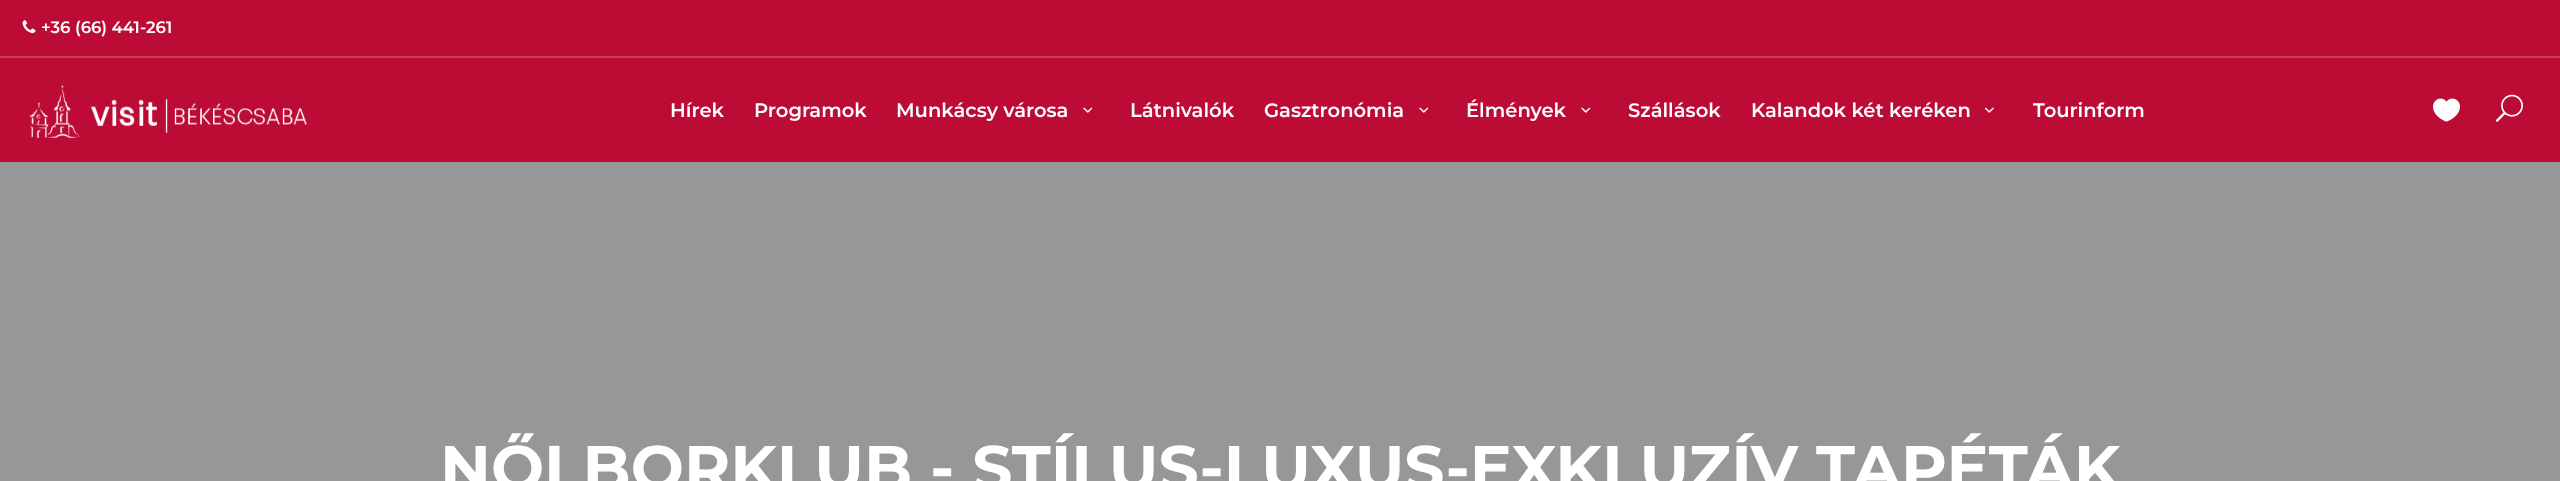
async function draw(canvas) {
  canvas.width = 2560
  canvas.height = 481
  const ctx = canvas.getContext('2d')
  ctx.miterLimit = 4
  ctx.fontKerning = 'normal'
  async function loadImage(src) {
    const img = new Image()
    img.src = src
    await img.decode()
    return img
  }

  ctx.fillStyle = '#979797'
  ctx.fillRect(0, 0, 2560, 481)
  ctx.fillStyle = '#bc0b34'
  ctx.fillRect(0, 0, 2560, 162)
  ctx.fillStyle = '#c93c5d'
  ctx.fillRect(0, 56, 2560, 2)
  ctx.drawImage(await loadImage('image0.png'), 22, 20, 14, 14)
  ctx.font = '100 16.5px "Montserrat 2"'
  ctx.fillStyle = '#fff'
  ctx.fillText('+36 (66) 441-261', 41, 33)
  ctx.drawImage(await loadImage('image1.png'), 29, 85, 278, 53)
  ctx.font = '100 19.5px "Montserrat 2"'
  ctx.fillText('Hírek', 670, 117)
  ctx.fillText('Programok', 754, 117)
  ctx.fillText('Munkácsy városa', 896, 117)
  ctx.drawImage(await loadImage('image2.png'), 1083, 107, 10, 6)
  ctx.fillText('Látnivalók', 1130, 117)
  ctx.fillText('Gasztronómia', 1264, 117)
  ctx.drawImage(await loadImage('image2.png'), 1419, 107, 10, 6)
  ctx.fillText('Élmények', 1466, 117)
  ctx.drawImage(await loadImage('image2.png'), 1581, 107, 10, 6)
  ctx.fillText('Szállások', 1628, 117)
  ctx.fillText('Kalandok két keréken', 1751, 117)
  ctx.drawImage(await loadImage('image3.png'), 1984, 107, 10, 6)
  ctx.fillText('Tourinform', 2033, 117)
  ctx.drawImage(await loadImage('image4.png'), 2433, 98, 27, 24)
  ctx.drawImage(await loadImage('image5.png'), 2495, 94, 28, 28)
  ctx.font = '100 63px Montserrat'
  ctx.fillText('NŐI BORKLUB - STÍLUS-LUXUS-EXKLUZÍV TAPÉTÁK', 440, 490)
}

draw(document.querySelector('canvas'))
